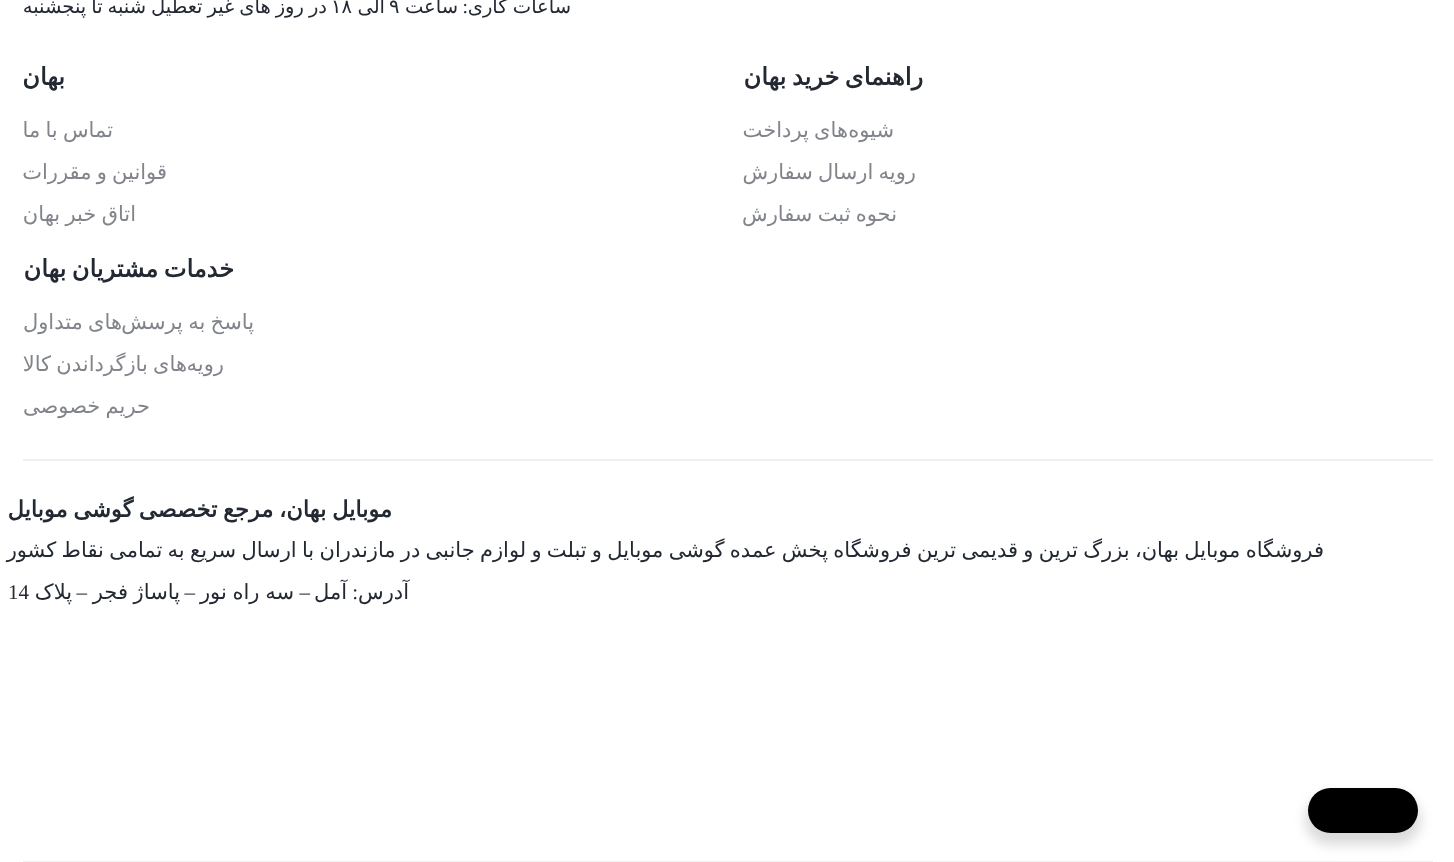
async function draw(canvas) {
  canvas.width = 1454
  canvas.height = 862
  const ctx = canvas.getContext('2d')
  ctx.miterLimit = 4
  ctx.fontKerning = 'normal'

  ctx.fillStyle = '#fff'
  ctx.fillRect(0, 0, 1454, 862)
  ctx.wordSpacing = '-1px'
  ctx.direction = 'rtl'
  ctx.font = '19.5px DejaVu Sans'
  ctx.fillStyle = '#232933'
  ctx.fillText('ساعات کاری', 571, 13)
  ctx.wordSpacing = '0px'
  ctx.font = '19.5px Liberation Serif'
  ctx.fillText(':', 468, 13)
  ctx.font = '19.5px DejaVu Sans'
  ctx.fillText('ساعت', 458, 13)
  ctx.direction = 'ltr'
  ctx.fillText('۹', 389, 13)
  ctx.direction = 'rtl'
  ctx.fillText('الی', 385, 13)
  ctx.wordSpacing = '-1.25px'
  ctx.fillText('در روز های غیر تعطیل شنبه تا پنجشنبه', 327, 13)
  ctx.wordSpacing = '0px'
  ctx.direction = 'ltr'
  ctx.fillText('۱۸', 331, 13)
  ctx.wordSpacing = '-2px'
  ctx.direction = 'rtl'
  ctx.font = 'bold 24px DejaVu Sans'
  ctx.fillText('راهنمای خرید بهان', 923, 85)
  ctx.wordSpacing = '0px'
  ctx.font = '21px DejaVu Sans'
  ctx.fillStyle = '#81858b'
  ctx.fillText('شیوه', 894, 137)
  ctx.wordSpacing = '-1.4px'
  ctx.fillText('های پرداخت', 848, 137)
  ctx.fillText('رویه ارسال سفارش', 916, 179)
  ctx.fillText('نحوه ثبت سفارش', 897, 221)
  ctx.wordSpacing = '0px'
  ctx.font = 'bold 24px DejaVu Sans'
  ctx.fillStyle = '#232933'
  ctx.fillText('بهان', 65, 85)
  ctx.wordSpacing = '-1.4px'
  ctx.font = '21px DejaVu Sans'
  ctx.fillStyle = '#81858b'
  ctx.fillText('تماس با ما', 113, 137)
  ctx.fillText('قوانین و مقررات', 167, 179)
  ctx.fillText('اتاق خبر بهان', 136, 221)
  ctx.wordSpacing = '-2px'
  ctx.font = 'bold 24px DejaVu Sans'
  ctx.fillStyle = '#232933'
  ctx.fillText('خدمات مشتریان بهان', 234, 277)
  ctx.wordSpacing = '-1.4px'
  ctx.font = '21px DejaVu Sans'
  ctx.fillStyle = '#81858b'
  ctx.fillText('پاسخ به پرسش', 254, 329)
  ctx.fillText('های متداول', 122, 329)
  ctx.fillText('های بازگرداندن کالا', 187, 371)
  ctx.wordSpacing = '0px'
  ctx.fillText('رویه', 224, 371)
  ctx.wordSpacing = '-1.4px'
  ctx.fillText('حریم خصوصی', 150, 413)
  ctx.fillStyle = '#f0f0f1'
  ctx.fillRect(23, 459, 1410, 2)
  ctx.fillRect(23, 861, 1410, 1)
  ctx.wordSpacing = '-1.5px'
  ctx.font = 'bold 22.5px DejaVu Sans'
  ctx.fillStyle = '#232933'
  ctx.fillText('موبایل بهان، مرجع تخصصی گوشی موبایل', 392, 517)
  ctx.wordSpacing = '-1.4px'
  ctx.font = '21px DejaVu Sans'
  ctx.fillText('فروشگاه موبایل بهان، بزرگ ترین و قدیمی ترین فروشگاه پخش عمده گوشی موبایل و تبلت و لوازم جانبی در مازندران با ارسال سریع به تمامی نقاط کشور', 1324, 557)
  ctx.wordSpacing = '0px'
  ctx.fillText('آدرس', 409, 599)
  ctx.font = '21px Liberation Serif'
  ctx.fillText(':', 358, 599)
  ctx.font = '21px DejaVu Sans'
  ctx.fillText('آمل', 347, 599)
  ctx.font = '21px Liberation Serif'
  ctx.fillText('–', 310, 599)
  ctx.wordSpacing = '-1px'
  ctx.font = '21px DejaVu Sans'
  ctx.fillText('سه راه نور', 294, 599)
  ctx.wordSpacing = '0px'
  ctx.font = '21px Liberation Serif'
  ctx.fillText('–', 195, 599)
  ctx.wordSpacing = '-1px'
  ctx.font = '21px DejaVu Sans'
  ctx.fillText('پاساژ فجر', 180, 599)
  ctx.wordSpacing = '0px'
  ctx.font = '21px Liberation Serif'
  ctx.fillText('–', 87, 599)
  ctx.font = '21px DejaVu Sans'
  ctx.fillText('پلاک', 72, 599)
  ctx.direction = 'ltr'
  ctx.font = '21px Liberation Serif'
  ctx.fillText('14', 8, 599)
  ctx.fillStyle = '#00000024'
  ctx.filter = 'blur(6px)'
  ctx.beginPath()
  ctx.roundRect(1305, 794, 116, 51, 25.5)
  ctx.fill()
  ctx.filter = 'none'
  ctx.fillStyle = '#000'
  ctx.beginPath()
  ctx.roundRect(1308, 788, 110, 45, 22.5)
  ctx.fill()
}

draw(document.querySelector('canvas'))
